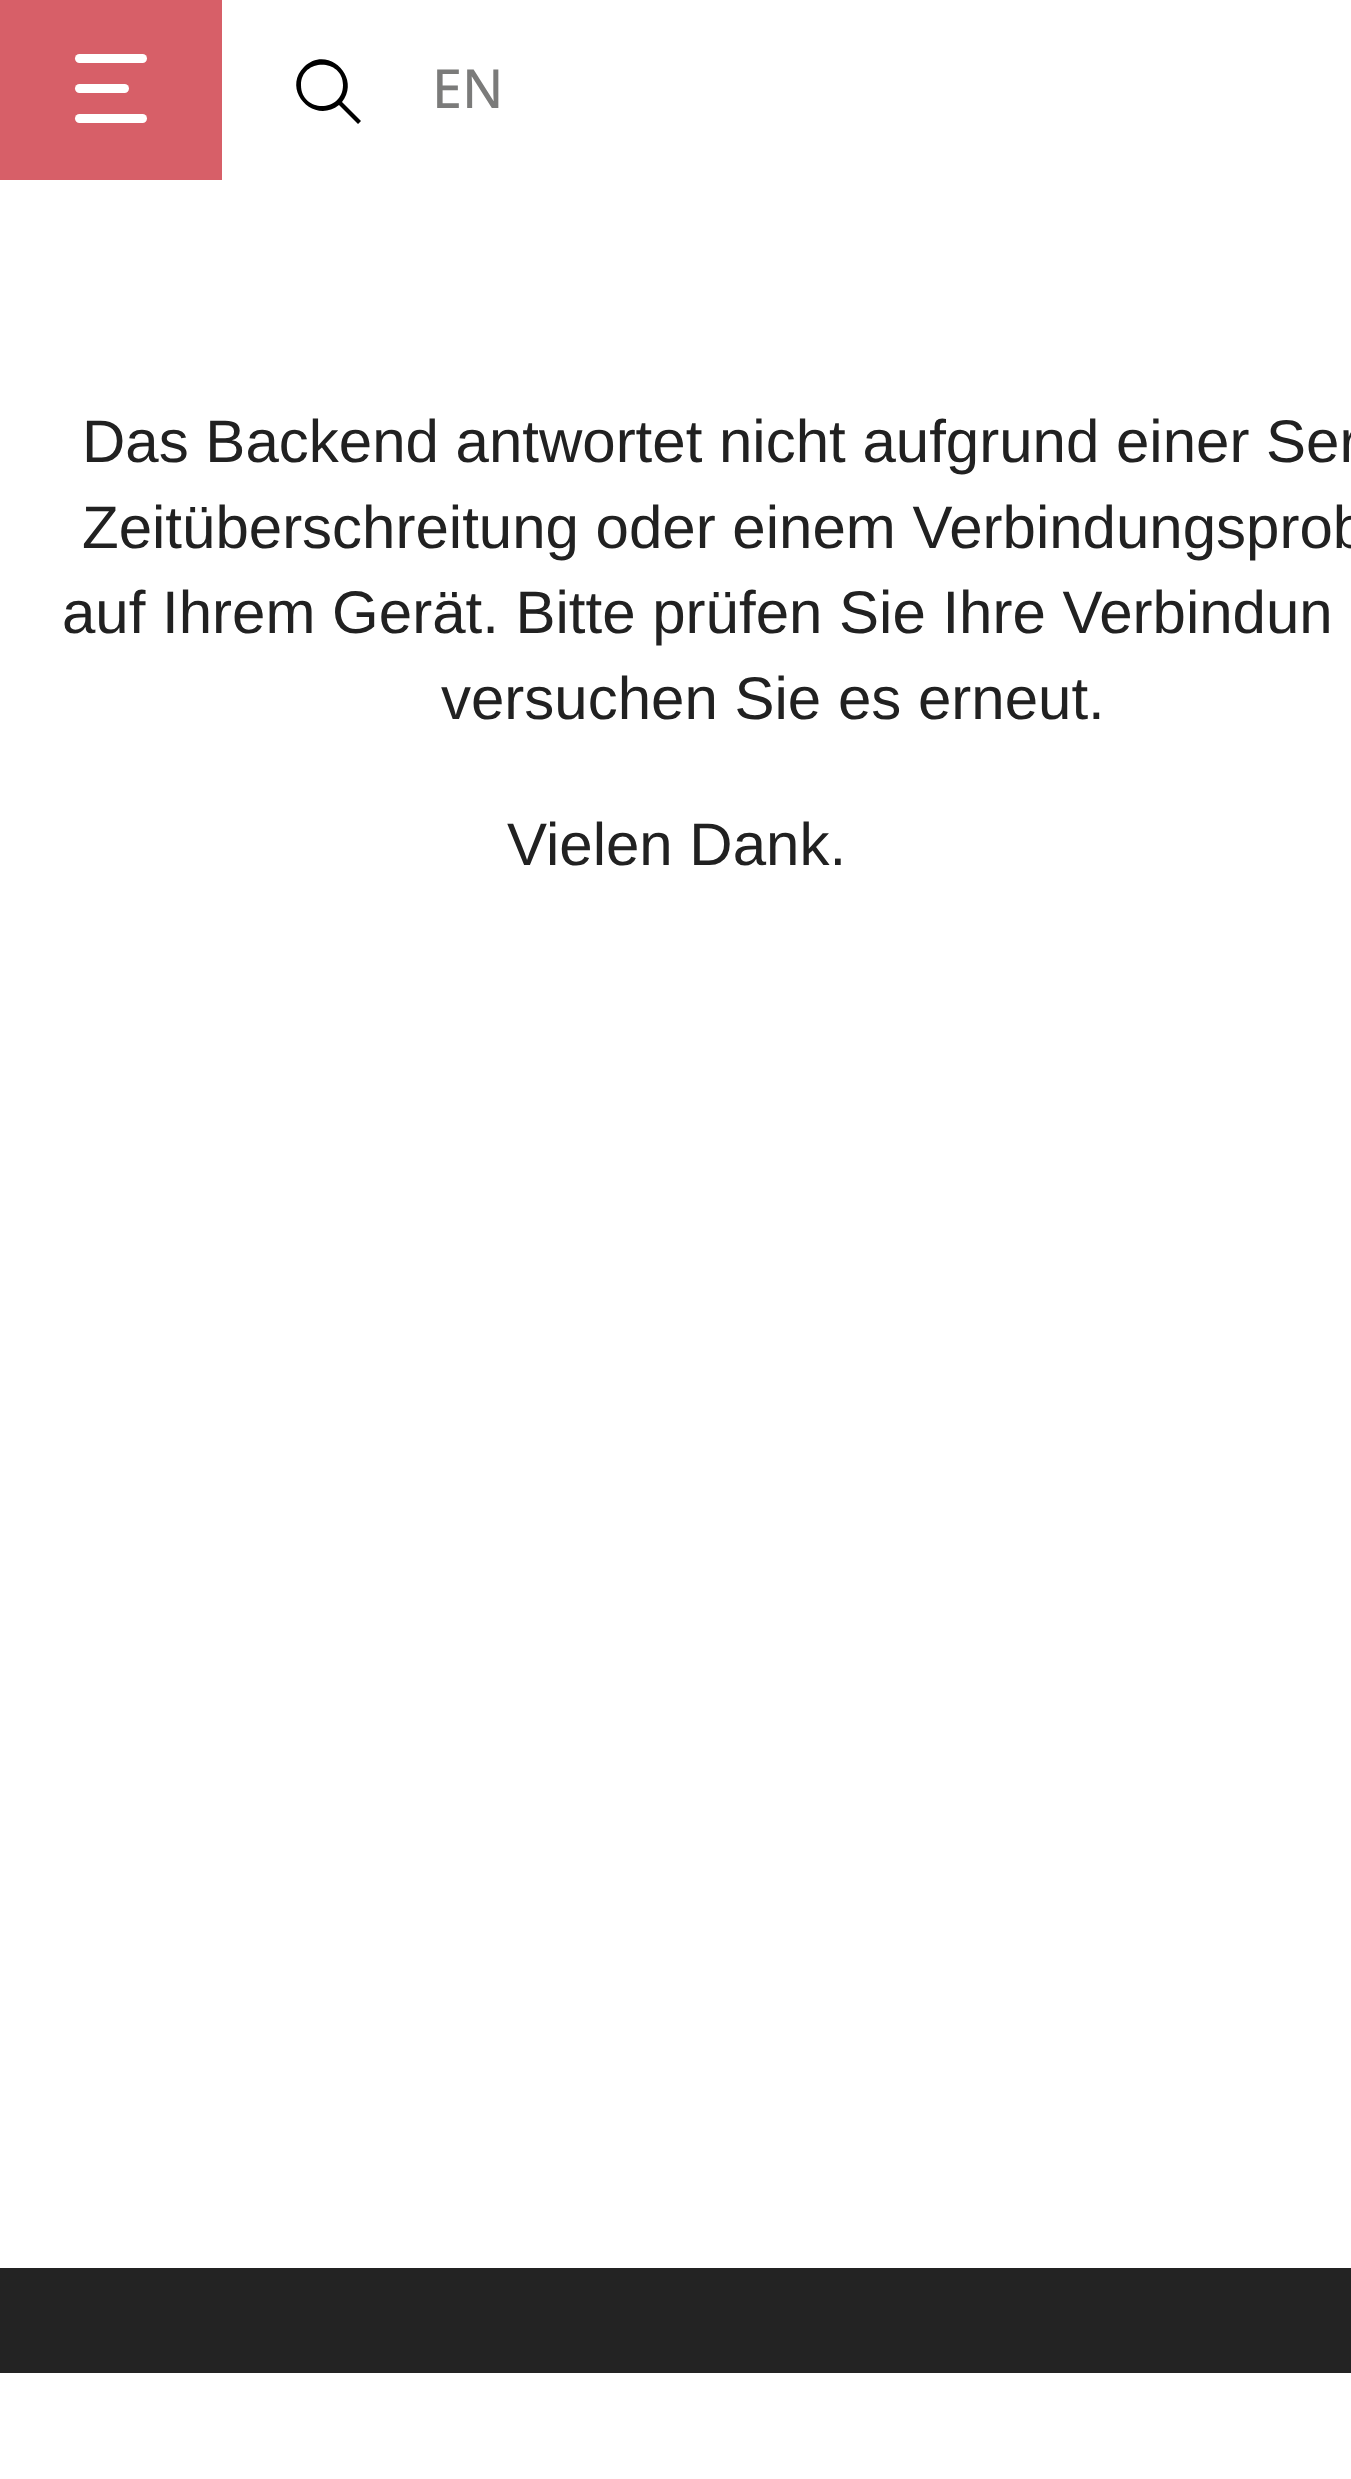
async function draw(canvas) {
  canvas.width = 1351
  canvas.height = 2479
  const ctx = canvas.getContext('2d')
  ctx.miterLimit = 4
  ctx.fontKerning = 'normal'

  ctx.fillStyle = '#fff'
  ctx.fillRect(0, 0, 1351, 2479)
  ctx.fillStyle = '#d75f68'
  ctx.fillRect(0, 0, 222, 180)
  ctx.fillStyle = '#fff'
  ctx.beginPath()
  ctx.roundRect(75, 84, 54, 9, 4.5)
  ctx.fill()
  ctx.beginPath()
  ctx.roundRect(75, 54, 72, 9, 4.5)
  ctx.fill()
  ctx.beginPath()
  ctx.roundRect(75, 114, 72, 9, 4.5)
  ctx.fill()
  ctx.fillStyle = '#000'
  ctx.beginPath()
  ctx.moveTo(301, 85)
  ctx.bezierCurveTo(301, 58, 343, 58, 343, 85)
  ctx.bezierCurveTo(343, 113, 301, 113, 301, 85)
  ctx.closePath()
  ctx.moveTo(361, 121)
  ctx.lineTo(342, 102)
  ctx.bezierCurveTo(362, 77, 327, 44, 304, 67)
  ctx.bezierCurveTo(281, 90, 314, 125, 339, 105)
  ctx.lineTo(358, 124)
  ctx.closePath()
  ctx.fill('evenodd')
  ctx.font = '500 54px Open Sans'
  ctx.fillStyle = '#7b7b7a'
  ctx.fillText('EN', 432, 108)
  ctx.font = '60px Liberation Sans'
  ctx.fillStyle = '#212121'
  ctx.fillText('Das Backend antwortet nicht aufgrund einer Ser', 82, 462)
  ctx.fillText('Zeitüberschreitung oder einem Verbindungsprob', 82, 548)
  ctx.fillText('auf Ihrem Gerät. Bitte prüfen Sie Ihre Verbindun', 62, 633)
  ctx.fillText('versuchen Sie es erneut.', 441, 719)
  ctx.fillText('Vielen Dank.', 507, 865)
  ctx.fillStyle = '#232323'
  ctx.fillRect(0, 2268, 1351, 105)
}

draw(document.querySelector('canvas'))
